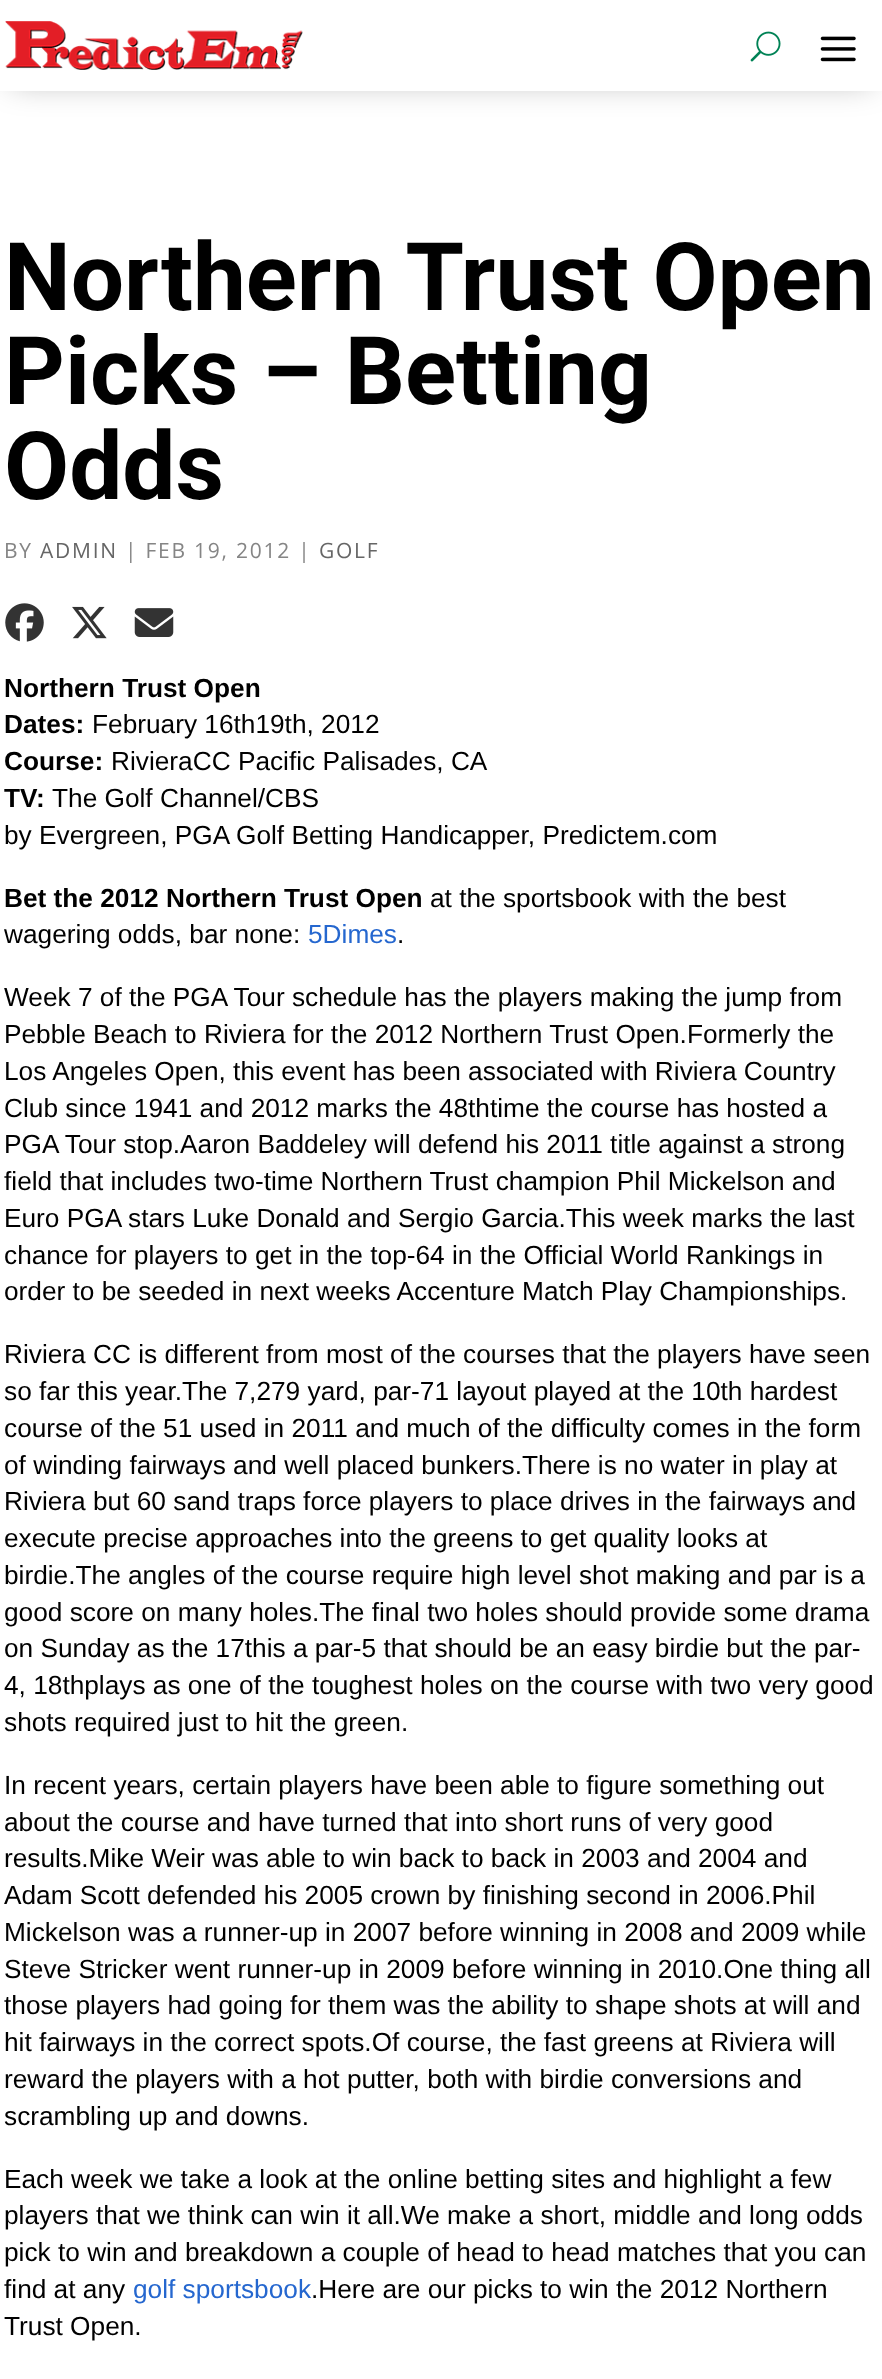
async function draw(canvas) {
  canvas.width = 882
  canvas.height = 2379
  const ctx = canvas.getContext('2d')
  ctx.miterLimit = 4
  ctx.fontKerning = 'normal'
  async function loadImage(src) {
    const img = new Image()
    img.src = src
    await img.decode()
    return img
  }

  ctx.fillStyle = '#fff'
  ctx.fillRect(0, 0, 882, 2379)
  ctx.fillStyle = '#0000004d'
  ctx.filter = 'blur(16px)'
  ctx.beginPath()
  ctx.rect(11, 12, 861, 70)
  ctx.fill()
  ctx.filter = 'none'
  ctx.fillStyle = '#fff'
  ctx.fillRect(0, 0, 882, 91)
  ctx.drawImage(await loadImage('image0.png'), 5, 21, 298, 49)
  ctx.drawImage(await loadImage('image1.png'), 750, 31, 31, 31)
  ctx.drawImage(await loadImage('image2.png'), 820, 36, 36, 26)
  ctx.font = 'bold 94.5px Roboto'
  ctx.fillStyle = '#000'
  ctx.fillText('Northern Trust Open', 4, 310)
  ctx.fillText('Picks – Betting', 4, 404)
  ctx.fillText('Odds', 4, 499)
  ctx.letterSpacing = '1.75px'
  ctx.font = '21px Open Sans'
  ctx.fillStyle = '#858585'
  ctx.fillText('BY', 4, 558)
  ctx.fillStyle = '#666'
  ctx.fillText('ADMIN', 40, 558)
  ctx.fillStyle = '#858585'
  ctx.fillText('| FEB 19, 2012 |', 125, 558)
  ctx.fillStyle = '#666'
  ctx.fillText('GOLF', 319, 558)
  ctx.drawImage(await loadImage('image3.png'), 5, 603, 39, 39)
  ctx.drawImage(await loadImage('image4.png'), 72, 606, 35, 33)
  ctx.drawImage(await loadImage('image5.png'), 134, 608, 40, 29)
  ctx.letterSpacing = '0px'
  ctx.font = 'bold 26.25px Liberation Sans'
  ctx.fillStyle = '#000'
  ctx.fillText('Northern Trust Open', 4, 697)
  ctx.fillText('Dates:', 4, 733)
  ctx.font = '26.25px Liberation Sans'
  ctx.fillText('February 16th19th, 2012', 92, 733)
  ctx.font = 'bold 26.25px Liberation Sans'
  ctx.fillText('Course:', 4, 770)
  ctx.font = '26.25px Liberation Sans'
  ctx.fillText('RivieraCC Pacific Palisades, CA', 111, 770)
  ctx.font = 'bold 26.25px Liberation Sans'
  ctx.fillText('TV:', 4, 807)
  ctx.font = '26.25px Liberation Sans'
  ctx.fillText('The Golf Channel/CBS', 52, 807)
  ctx.fillText('by Evergreen, PGA Golf Betting Handicapper, Predictem.com', 4, 844)
  ctx.font = 'bold 26.25px Liberation Sans'
  ctx.fillText('Bet the 2012 Northern Trust Open', 4, 907)
  ctx.font = '26.25px Liberation Sans'
  ctx.fillText('at the sportsbook with the best', 430, 907)
  ctx.fillText('wagering odds, bar none:', 4, 943)
  ctx.fillStyle = '#2567cf'
  ctx.fillText('5Dimes', 308, 943)
  ctx.fillStyle = '#000'
  ctx.fillText('.', 397, 943)
  ctx.fillText('Week 7 of the PGA Tour schedule has the players making the jump from', 4, 1006)
  ctx.fillText('Pebble Beach to Riviera for the 2012 Northern Trust Open.Formerly the', 4, 1043)
  ctx.fillText('Los Angeles Open, this event has been associated with Riviera Country', 4, 1080)
  ctx.fillText('Club since 1941 and 2012 marks the 48thtime the course has hosted a', 4, 1117)
  ctx.fillText('PGA Tour stop.Aaron Baddeley will defend his 2011 title against a strong', 4, 1153)
  ctx.fillText('field that includes two-time Northern Trust champion Phil Mickelson and', 4, 1190)
  ctx.fillText('Euro PGA stars Luke Donald and Sergio Garcia.This week marks the last', 4, 1227)
  ctx.fillText('chance for players to get in the top-64 in the Official World Rankings in', 4, 1264)
  ctx.fillText('order to be seeded in next weeks Accenture Match Play Championships.', 4, 1300)
  ctx.fillText('Riviera CC is different from most of the courses that the players have seen', 4, 1363)
  ctx.fillText('so far this year.The 7,279 yard, par-71 layout played at the 10th hardest', 4, 1400)
  ctx.fillText('course of the 51 used in 2011 and much of the difficulty comes in the form', 4, 1437)
  ctx.fillText('of winding fairways and well placed bunkers.There is no water in play at', 4, 1474)
  ctx.fillText('Riviera but 60 sand traps force players to place drives in the fairways and', 4, 1510)
  ctx.fillText('execute precise approaches into the greens to get quality looks at', 4, 1547)
  ctx.fillText('birdie.The angles of the course require high level shot making and par is a', 4, 1584)
  ctx.fillText('good score on many holes.The final two holes should provide some drama', 4, 1621)
  ctx.fillText('on Sunday as the 17this a par-5 that should be an easy birdie but the par-', 4, 1657)
  ctx.fillText('4, 18thplays as one of the toughest holes on the course with two very good', 4, 1694)
  ctx.fillText('shots required just to hit the green.', 4, 1731)
  ctx.fillText('In recent years, certain players have been able to figure something out', 4, 1794)
  ctx.fillText('about the course and have turned that into short runs of very good', 4, 1831)
  ctx.fillText('results.Mike Weir was able to win back to back in 2003 and 2004 and', 4, 1867)
  ctx.fillText('Adam Scott defended his 2005 crown by finishing second in 2006.Phil', 4, 1904)
  ctx.fillText('Mickelson was a runner-up in 2007 before winning in 2008 and 2009 while', 4, 1941)
  ctx.fillText('Steve Stricker went runner-up in 2009 before winning in 2010.One thing all', 4, 1978)
  ctx.fillText('those players had going for them was the ability to shape shots at will and', 4, 2014)
  ctx.fillText('hit fairways in the correct spots.Of course, the fast greens at Riviera will', 4, 2051)
  ctx.fillText('reward the players with a hot putter, both with birdie conversions and', 4, 2088)
  ctx.fillText('scrambling up and downs.', 4, 2125)
  ctx.fillText('Each week we take a look at the online betting sites and highlight a few', 4, 2188)
  ctx.fillText('players that we think can win it all.We make a short, middle and long odds', 4, 2224)
  ctx.fillText('pick to win and breakdown a couple of head to head matches that you can', 4, 2261)
  ctx.fillText('find at any', 4, 2298)
  ctx.fillStyle = '#2567cf'
  ctx.fillText('golf sportsbook', 133, 2298)
  ctx.fillStyle = '#000'
  ctx.fillText('.Here are our picks to win the 2012 Northern', 311, 2298)
  ctx.fillText('Trust Open.', 4, 2335)
}

draw(document.querySelector('canvas'))
